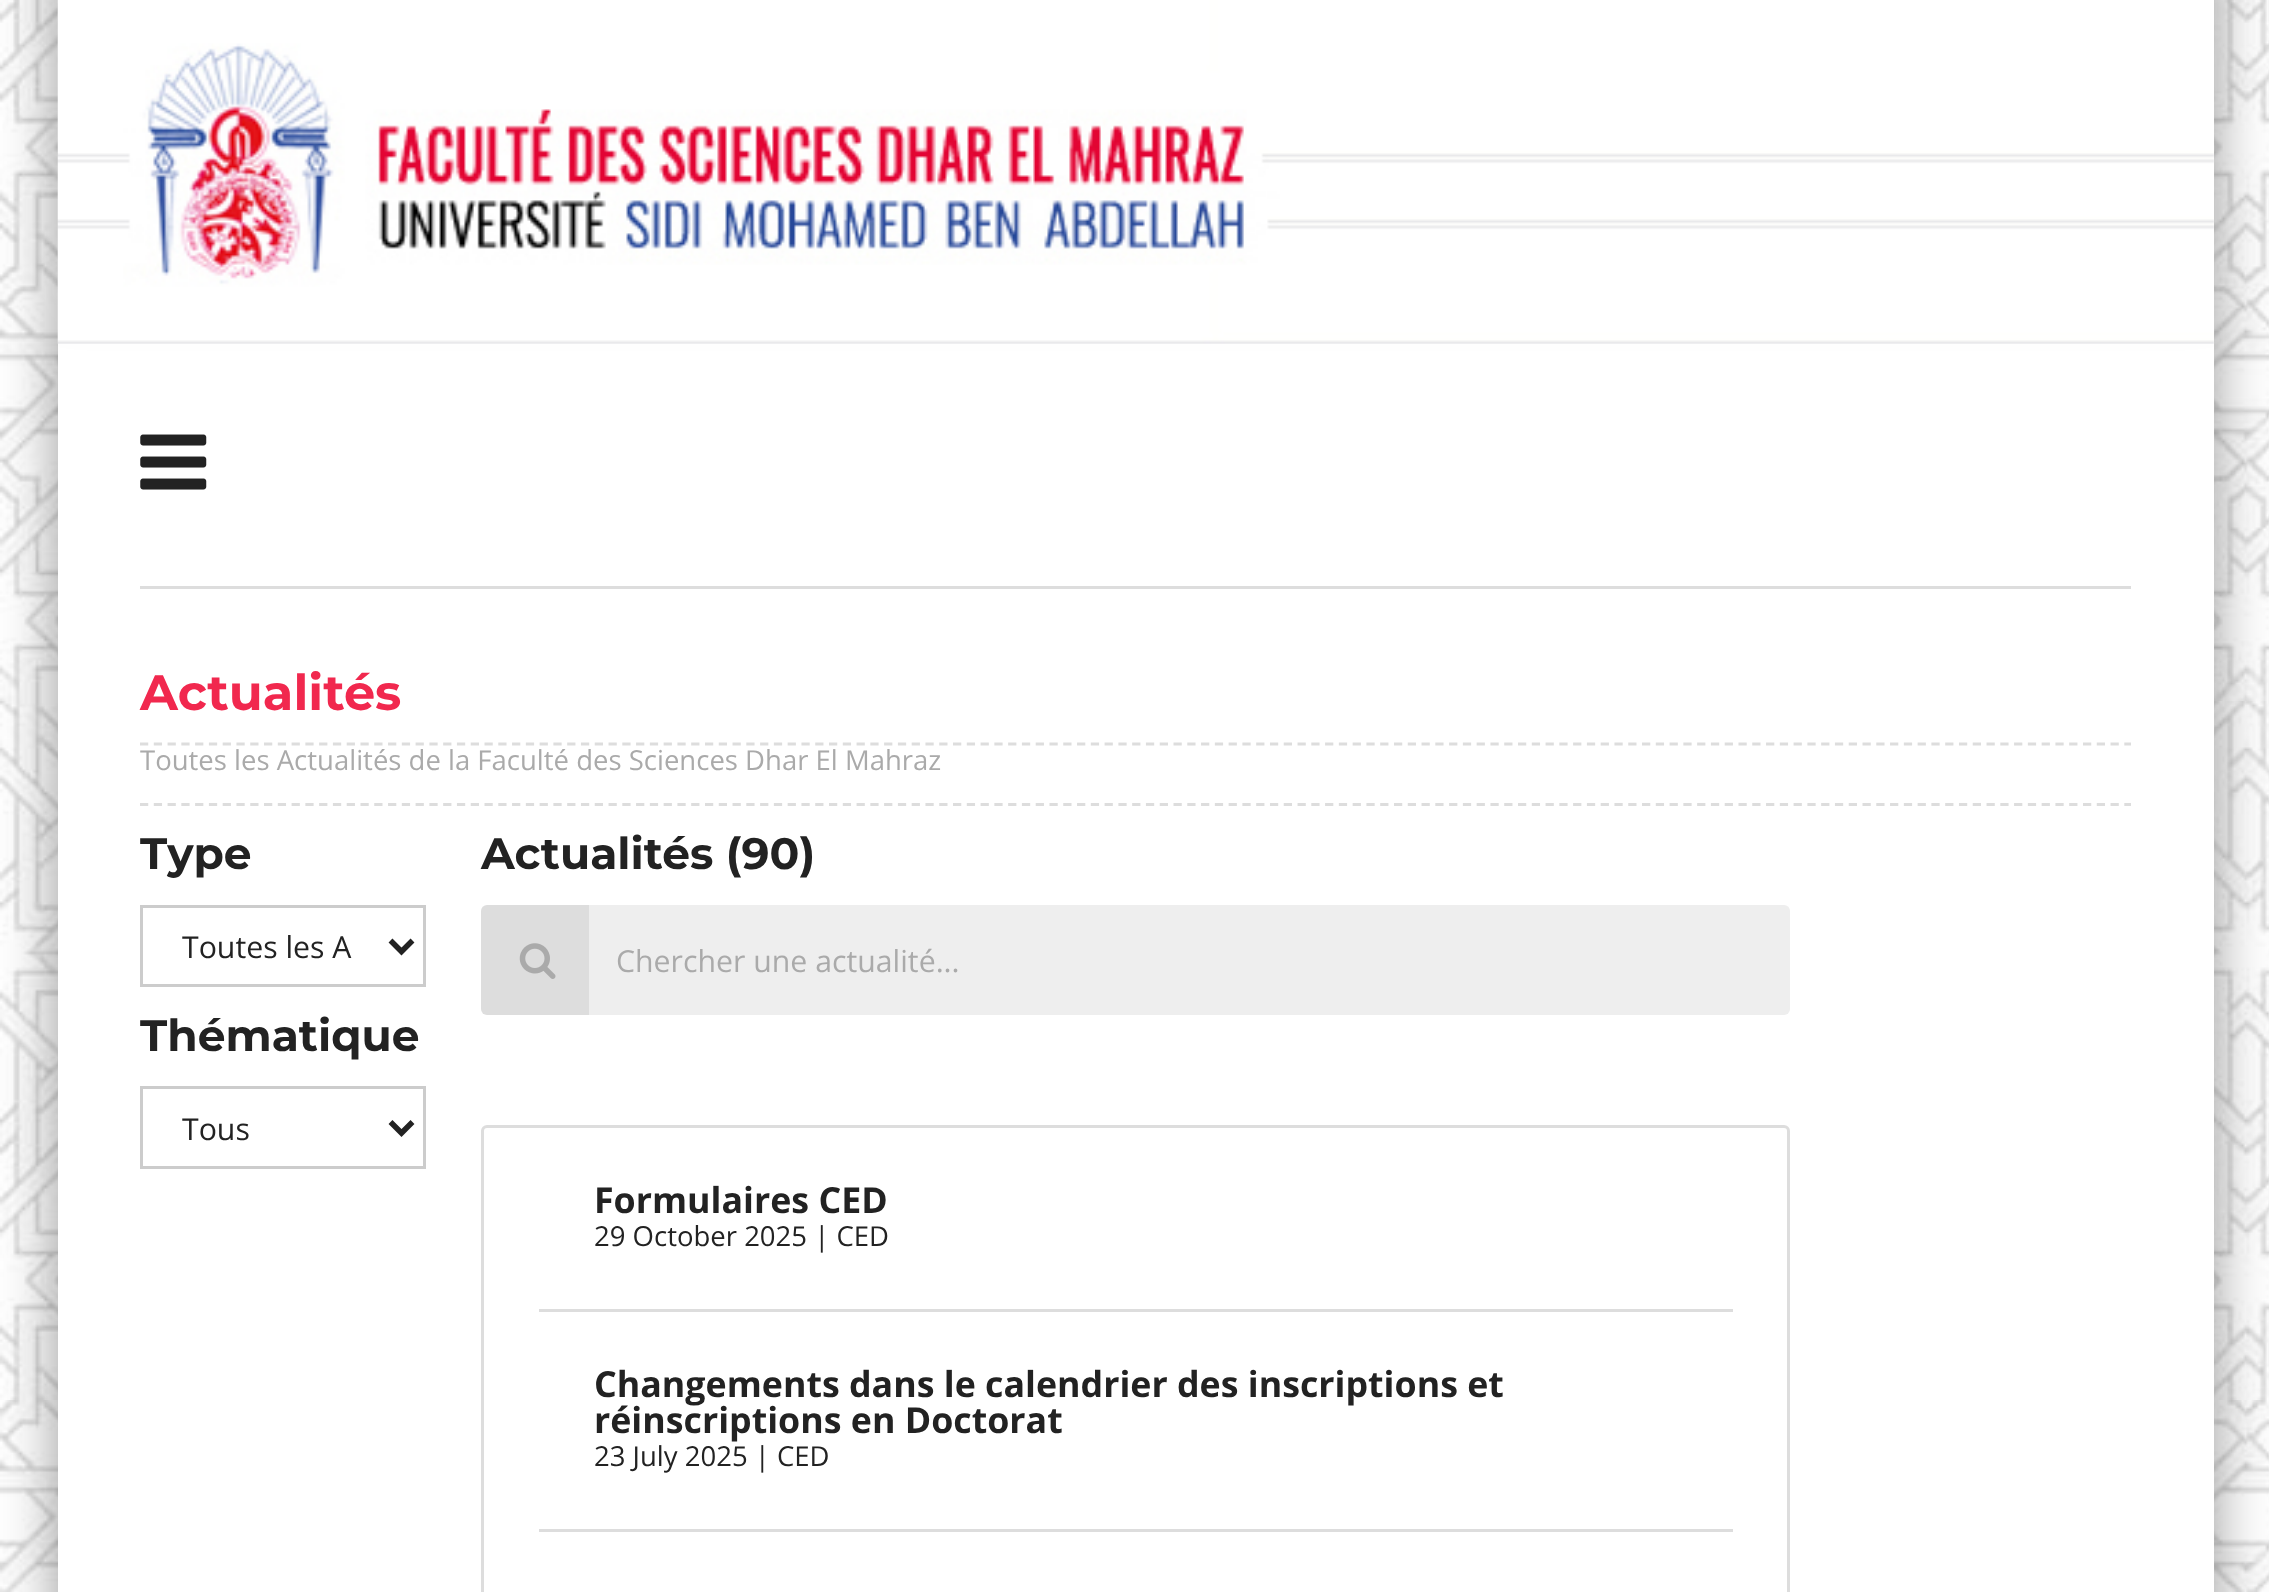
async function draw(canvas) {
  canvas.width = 2269
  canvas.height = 1592
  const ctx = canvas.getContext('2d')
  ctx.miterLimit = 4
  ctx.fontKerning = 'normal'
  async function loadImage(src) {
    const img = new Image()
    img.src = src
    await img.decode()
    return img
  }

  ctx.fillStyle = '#fff'
  ctx.fillRect(0, 0, 2269, 1592)
  ctx.drawImage(await loadImage('image0.png'), 0, 0, 2269, 1592)
  ctx.fillStyle = '#00000066'
  ctx.filter = 'blur(27.5px)'
  ctx.beginPath()
  ctx.rect(58, 289, 2156, 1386)
  ctx.fill()
  ctx.filter = 'none'
  ctx.fillStyle = '#fff'
  ctx.fillRect(58, 344, 2156, 1248)
  ctx.fillStyle = '#00000066'
  ctx.filter = 'blur(27.5px)'
  ctx.beginPath()
  ctx.rect(58, -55, 2156, 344)
  ctx.fill()
  ctx.filter = 'none'
  ctx.fillStyle = '#fff'
  ctx.fillRect(58, 0, 2156, 344)
  ctx.drawImage(await loadImage('image1.png'), 57, 0, 2157, 344)
  ctx.fillStyle = '#ddd'
  ctx.fillRect(140, 586, 1991, 3)
  ctx.drawImage(await loadImage('image2.png'), 140, 434, 67, 56)
  ctx.font = 'bold 49.5px Montserrat'
  ctx.fillStyle = '#f1284e'
  ctx.fillText('Actualités', 140, 710)
  ctx.beginPath()
  ctx.moveTo(140, 744)
  ctx.lineTo(2131, 744)
  ctx.strokeStyle = '#ddd'
  ctx.lineWidth = 2.8
  ctx.setLineDash([8.25, 5.53])
  ctx.stroke()
  ctx.beginPath()
  ctx.moveTo(140, 804.5)
  ctx.lineTo(2131, 804.5)
  ctx.stroke()
  ctx.font = '27.5px Open Sans'
  ctx.fillStyle = '#aaa'
  ctx.fillText('Toutes les Actualités de la Faculté des Sciences Dhar El Mahraz', 140, 770)
  ctx.font = 'bold 44px Montserrat'
  ctx.fillStyle = '#222'
  ctx.fillText('Type', 140, 869)
  ctx.strokeStyle = '#ccc'
  ctx.lineWidth = 3
  ctx.setLineDash([])
  ctx.strokeRect(141.5, 906.5, 283, 79)
  ctx.beginPath()
  ctx.moveTo(390.5, 940.5)
  ctx.lineTo(401.5, 951.5)
  ctx.lineTo(412.5, 940.5)
  ctx.strokeStyle = '#222'
  ctx.lineWidth = 5.5
  ctx.stroke()
  ctx.save()
  ctx.beginPath()
  ctx.rect(182, 924, 170, 47)
  ctx.clip()
  ctx.font = '30.25px Open Sans'
  ctx.fillText('Toutes les A', 182, 958)
  ctx.restore()
  ctx.fillText('Thématique', 140, 1051)
  ctx.strokeStyle = '#ccc'
  ctx.lineWidth = 3
  ctx.strokeRect(141.5, 1087.5, 283, 80)
  ctx.beginPath()
  ctx.moveTo(390.5, 1122)
  ctx.lineTo(401.5, 1133)
  ctx.lineTo(412.5, 1122)
  ctx.strokeStyle = '#222'
  ctx.lineWidth = 5.5
  ctx.stroke()
  ctx.save()
  ctx.beginPath()
  ctx.rect(182, 1106, 170, 46)
  ctx.clip()
  ctx.font = '30.25px Open Sans'
  ctx.fillText('Tous', 182, 1140)
  ctx.restore()
  ctx.fillText('Actualités (90)', 481, 869)
  ctx.fillStyle = '#ddd'
  ctx.beginPath()
  ctx.roundRect(481, 905, 110, 110, [6, 0, 0, 6])
  ctx.fill()
  ctx.drawImage(await loadImage('image3.png'), 519, 943, 37, 36)
  ctx.fillStyle = '#eee'
  ctx.beginPath()
  ctx.roundRect(589, 905, 1201, 110, [0, 6, 6, 0])
  ctx.fill()
  ctx.font = '30.25px Open Sans'
  ctx.fillStyle = '#aaa'
  ctx.fillText('Chercher une actualité...', 616, 972)
  ctx.beginPath()
  ctx.roundRect(482.5, 1126.5, 1306, 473, 4.5)
  ctx.strokeStyle = '#ddd'
  ctx.lineWidth = 3
  ctx.stroke()
  ctx.fillStyle = '#ddd'
  ctx.fillRect(539, 1309, 1194, 3)
  ctx.font = 'bold 35.75px Open Sans'
  ctx.fillStyle = '#222'
  ctx.fillText('Formulaires CED', 594, 1213)
  ctx.font = '27.5px Open Sans'
  ctx.fillText('29 October 2025 | CED', 594, 1246)
  ctx.fillStyle = '#ddd'
  ctx.fillRect(539, 1529, 1194, 3)
  ctx.font = 'bold 35.75px Open Sans'
  ctx.fillStyle = '#222'
  ctx.fillText('Changements dans le calendrier des inscriptions et', 594, 1397)
  ctx.fillText('réinscriptions en Doctorat', 594, 1433)
  ctx.font = '27.5px Open Sans'
  ctx.fillText('23 July 2025 | CED', 594, 1466)
}

draw(document.querySelector('canvas'))
